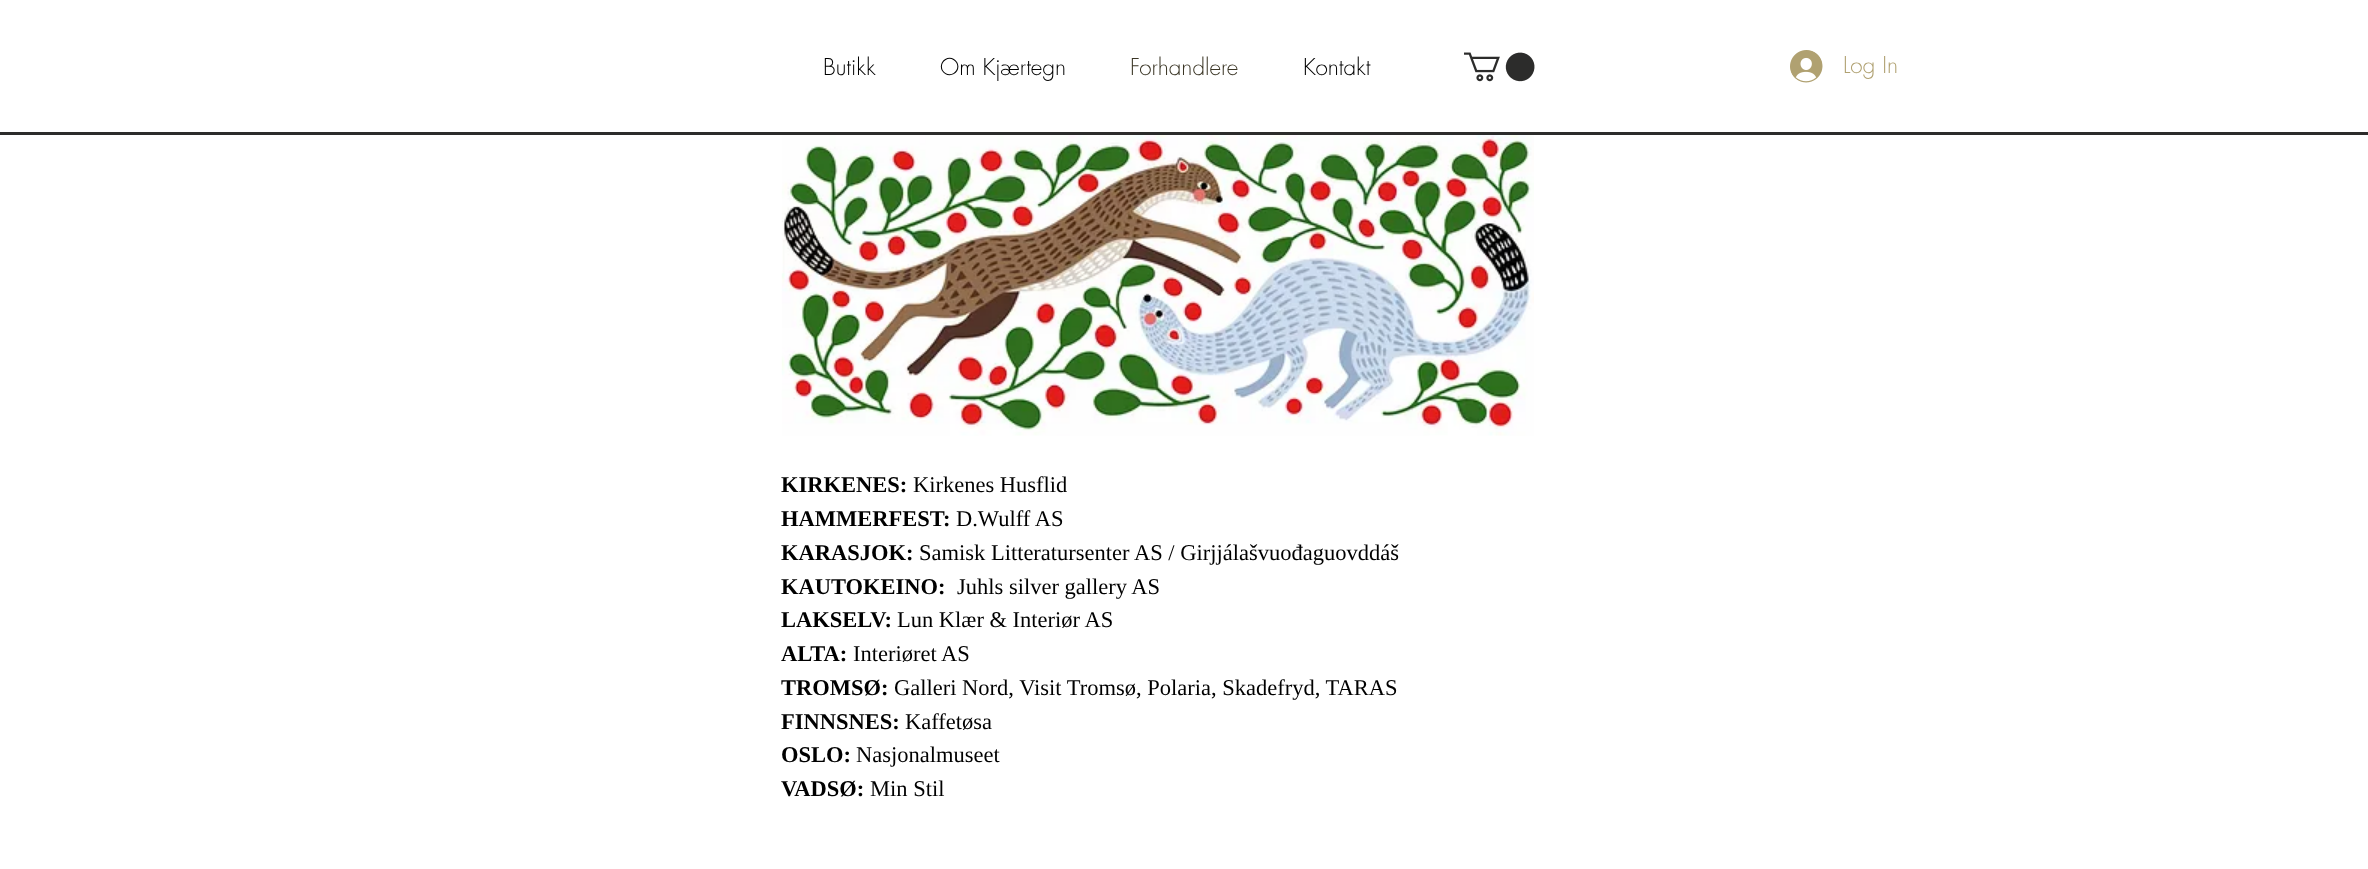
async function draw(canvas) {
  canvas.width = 2368
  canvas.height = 869
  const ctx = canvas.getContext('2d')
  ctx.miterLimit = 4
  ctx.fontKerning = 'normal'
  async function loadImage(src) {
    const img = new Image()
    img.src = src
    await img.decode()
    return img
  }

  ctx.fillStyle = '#fff'
  ctx.fillRect(0, 0, 2368, 869)
  ctx.font = '300 22.5px futura'
  ctx.fillStyle = '#000'
  ctx.fillText('Butikk', 823, 75)
  ctx.fillText('Om Kjærtegn', 940, 75)
  ctx.fillStyle = '#3b3626'
  ctx.fillText('Forhandlere', 1130, 75)
  ctx.fillStyle = '#000'
  ctx.fillText('Kontakt', 1303, 75)
  ctx.drawImage(await loadImage('image0.png'), 1464, 52, 71, 30)
  ctx.drawImage(await loadImage('image1.png'), 1790, 50, 33, 33)
  ctx.fillStyle = '#b0a171'
  ctx.fillText('Log In', 1843, 73)
  ctx.fillStyle = '#2c2c2b'
  ctx.fillRect(0, 132, 2368, 3)
  ctx.drawImage(await loadImage('image2.png'), 781, 135, 753, 301)
  ctx.font = 'bold 22.5px Liberation Serif'
  ctx.fillStyle = '#000'
  ctx.fillText('KIRKENES:', 781, 492)
  ctx.font = '22.5px Liberation Serif'
  ctx.fillText('Kirkenes Husflid', 913, 492)
  ctx.font = 'bold 22.5px Liberation Serif'
  ctx.fillText('HAMMERFEST:', 781, 526)
  ctx.font = '22.5px Liberation Serif'
  ctx.fillText('D.Wulff AS', 956, 526)
  ctx.font = 'bold 22.5px Liberation Serif'
  ctx.fillText('KARASJOK:', 781, 560)
  ctx.font = '22.5px Liberation Serif'
  ctx.fillText('Samisk Litteratursenter AS / Girjjálašvuođaguovddáš', 919, 560)
  ctx.font = 'bold 22.5px Liberation Serif'
  ctx.fillText('KAUTOKEINO:', 781, 594)
  ctx.font = '22.5px Liberation Serif'
  ctx.fillText('Juhls silver gallery AS', 957, 594)
  ctx.font = 'bold 22.5px Liberation Serif'
  ctx.fillText('LAKSELV:', 781, 627)
  ctx.font = '22.5px Liberation Serif'
  ctx.fillText('Lun Klær & Interiør AS', 897, 627)
  ctx.font = 'bold 22.5px Liberation Serif'
  ctx.fillText('ALTA:', 781, 661)
  ctx.font = '22.5px Liberation Serif'
  ctx.fillText('Interiøret AS', 853, 661)
  ctx.font = 'bold 22.5px Liberation Serif'
  ctx.fillText('TROMSØ:', 781, 695)
  ctx.font = '22.5px Liberation Serif'
  ctx.fillText('Galleri Nord, Visit Tromsø, Polaria, Skadefryd, TARAS', 894, 695)
  ctx.font = 'bold 22.5px Liberation Serif'
  ctx.fillText('FINNSNES:', 781, 729)
  ctx.font = '22.5px Liberation Serif'
  ctx.fillText('Kaffetøsa', 905, 729)
  ctx.font = 'bold 22.5px Liberation Serif'
  ctx.fillText('OSLO:', 781, 762)
  ctx.font = '22.5px Liberation Serif'
  ctx.fillText('Nasjonalmuseet', 856, 762)
  ctx.font = 'bold 22.5px Liberation Serif'
  ctx.fillText('VADSØ:', 781, 796)
  ctx.font = '22.5px Liberation Serif'
  ctx.fillText('Min Stil', 870, 796)
}

draw(document.querySelector('canvas'))
